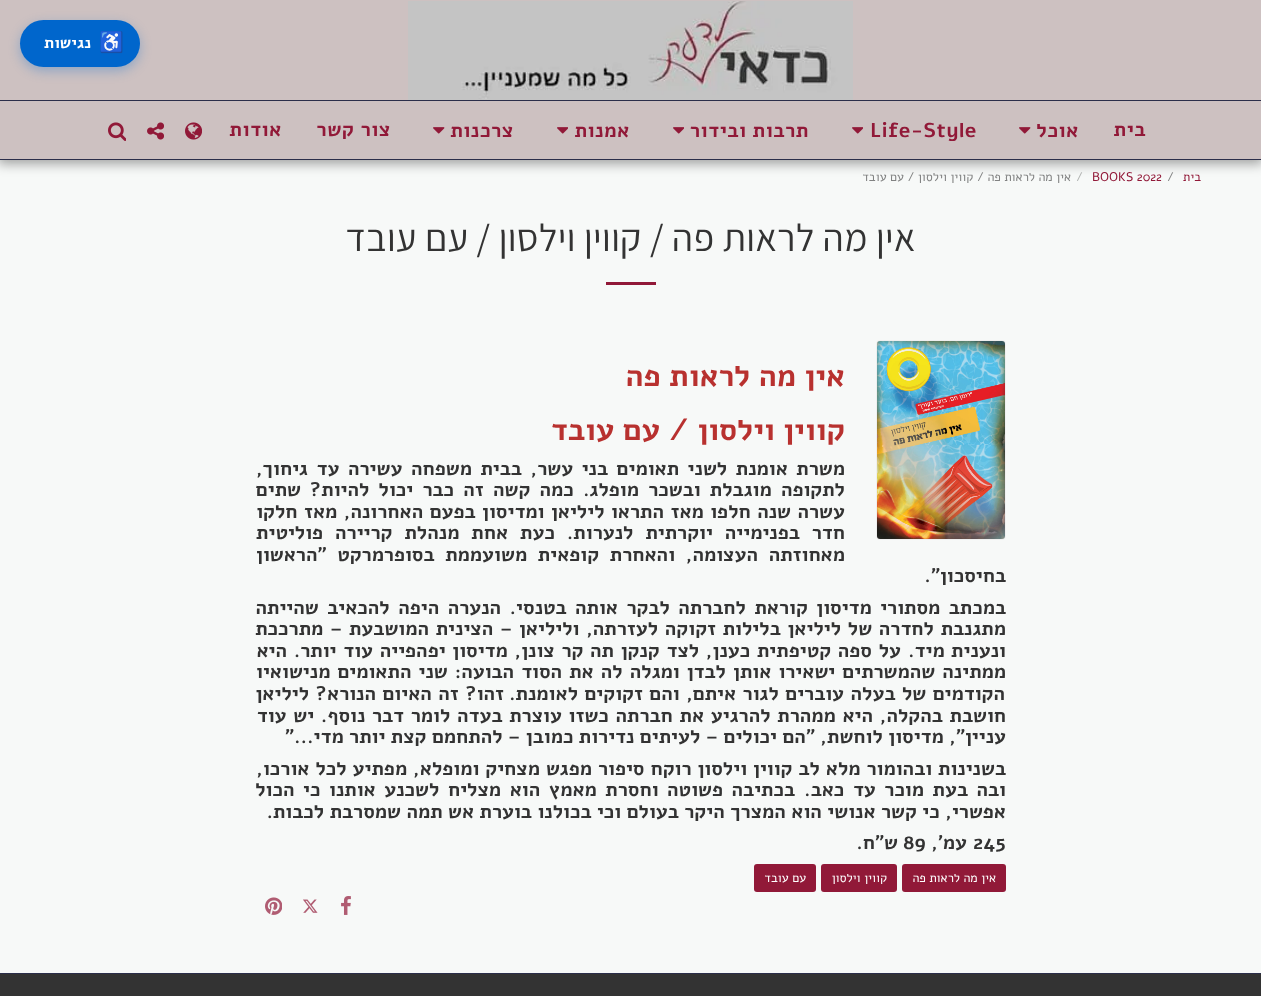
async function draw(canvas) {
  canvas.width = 1261
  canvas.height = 996
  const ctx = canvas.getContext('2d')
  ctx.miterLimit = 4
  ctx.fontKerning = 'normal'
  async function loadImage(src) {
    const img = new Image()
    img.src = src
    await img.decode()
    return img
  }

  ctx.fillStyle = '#f7f9f8'
  ctx.fillRect(0, 0, 1261, 996)
  ctx.fillStyle = '#00000059'
  ctx.filter = 'blur(6px)'
  ctx.beginPath()
  ctx.rect(-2, 0, 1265, 164)
  ctx.fill()
  ctx.filter = 'none'
  ctx.fillStyle = '#cdc1c1'
  ctx.fillRect(0, 0, 1261, 100)
  ctx.fillStyle = '#0066cc4d'
  ctx.filter = 'blur(6px)'
  ctx.beginPath()
  ctx.roundRect(20, 24, 120, 47, 23.5)
  ctx.fill()
  ctx.filter = 'none'
  ctx.fillStyle = '#06c'
  ctx.beginPath()
  ctx.roundRect(20, 20, 120, 47, 23.5)
  ctx.fill()
  ctx.font = 'bold 20px Noto Color Emoji'
  ctx.fillStyle = '#fff'
  ctx.fillText('♿', 99, 49)
  ctx.direction = 'rtl'
  ctx.font = 'bold 16px Alef'
  ctx.fillText('נגישות', 91, 48)
  ctx.fillStyle = '#2b2e4a'
  ctx.fillRect(0, 159, 1261, 1)
  ctx.drawImage(await loadImage('image0.png'), 408, 1, 445, 99)
  ctx.fillStyle = '#cdc1c1'
  ctx.fillRect(0, 101, 1261, 58)
  ctx.fillStyle = '#2b2e4a'
  ctx.fillRect(0, 100, 1261, 1)
  ctx.letterSpacing = '0.5px'
  ctx.font = 'bold 20px Alef'
  ctx.fillStyle = '#911938'
  ctx.fillText('בית', 1146, 136)
  ctx.fillText('אוכל', 1079, 137)
  ctx.drawImage(await loadImage('image1.png'), 1019, 127, 12, 7)
  ctx.direction = 'ltr'
  ctx.fillText('Life-Style', 870, 137)
  ctx.drawImage(await loadImage('image2.png'), 852, 127, 11, 7)
  ctx.direction = 'rtl'
  ctx.fillText('תרבות ובידור', 809, 137)
  ctx.drawImage(await loadImage('image2.png'), 673, 127, 11, 7)
  ctx.fillText('אמנות', 630, 137)
  ctx.drawImage(await loadImage('image2.png'), 557, 127, 11, 7)
  ctx.fillText('צרכנות', 514, 137)
  ctx.drawImage(await loadImage('image1.png'), 433, 127, 12, 7)
  ctx.fillText('צור קשר', 391, 136)
  ctx.fillText('אודות', 282, 136)
  ctx.drawImage(await loadImage('image3.png'), 185, 122, 17, 18)
  ctx.drawImage(await loadImage('image4.png'), 147, 122, 17, 18)
  ctx.drawImage(await loadImage('image5.png'), 108, 122, 18, 19)
  ctx.letterSpacing = '0px'
  ctx.font = '12.5px Alef'
  ctx.fillText('בית', 1201, 181)
  ctx.direction = 'ltr'
  ctx.fillStyle = '#818282'
  ctx.fillText('/', 1167, 181)
  ctx.fillStyle = '#911938'
  ctx.fillText('BOOKS 2022', 1092, 181)
  ctx.fillStyle = '#b0b2b1'
  ctx.fillText('/', 1076, 181)
  ctx.direction = 'rtl'
  ctx.fillStyle = '#818282'
  ctx.fillText('אין מה לראות פה / קווין וילסון / עם עובד', 1071, 181)
  ctx.letterSpacing = '0.5px'
  ctx.font = '38.25px Assistant'
  ctx.fillStyle = '#333'
  ctx.fillText('אין מה לראות פה / קווין וילסון / עם עובד', 916, 251)
  ctx.fillStyle = '#911938'
  ctx.fillRect(606, 282, 50, 3)
  ctx.beginPath()
  ctx.roundRect(876.5, 340.5, 129, 199, 3.5)
  ctx.strokeStyle = '#efefef'
  ctx.stroke()
  ctx.drawImage(await loadImage('image6.png'), 877, 341, 128, 198)
  ctx.letterSpacing = '0px'
  ctx.font = 'bold 30.6px Alef'
  ctx.fillStyle = '#b8312f'
  ctx.fillText('אין מה לראות פה', 845, 386)
  ctx.fillText('קווין וילסון / עם עובד', 845, 440)
  ctx.wordSpacing = '3.1px'
  ctx.font = 'bold 19.6px Alef'
  ctx.fillStyle = '#333'
  ctx.fillText('משרת אומנת לשני תאומים בני עשר, בבית משפחה עשירה עד גיחוך,', 845, 475)
  ctx.wordSpacing = '3.75px'
  ctx.fillText('לתקופה מוגבלת ובשכר מופלג. כמה קשה זה כבר יכול להיות?', 845, 496)
  ctx.wordSpacing = '0px'
  ctx.fillText('שתים', 301, 496)
  ctx.wordSpacing = '1px'
  ctx.fillText('עשרה שנה חלפו מאז התראו ליליאן ומדיסון בפעם האחרונה, מאז חלקו', 845, 518)
  ctx.wordSpacing = '6.5px'
  ctx.fillText('חדר בפנימייה יוקרתית לנערות. כעת אחת מנהלת קריירה פוליטית', 845, 539)
  ctx.wordSpacing = '5.25px'
  ctx.fillText('מאחוזתה העצומה, והאחרת קופאית משועממת בסופרמרקט "הראשון', 845, 561)
  ctx.wordSpacing = '0px'
  ctx.fillText('בחיסכון".', 1006, 582)
  ctx.wordSpacing = '3px'
  ctx.fillText('במכתב מסתורי מדיסון קוראת לחברתה לבקר אותה בטנסי. הנערה היפה להכאיב שהייתה', 1006, 614)
  ctx.wordSpacing = '1.25px'
  ctx.fillText('מתגנבת לחדרה של ליליאן בלילות זקוקה לעזרתה, וליליאן – הצינית המושבעת – מתרככת', 1006, 635)
  ctx.wordSpacing = '1px'
  ctx.fillText('ונענית מיד.', 1006, 657)
  ctx.wordSpacing = '1.25px'
  ctx.fillText('על ספה קטיפתית כענן, לצד קנקן תה קר צונן, מדיסון יפהפייה עוד יותר. היא', 901, 657)
  ctx.wordSpacing = '1.6px'
  ctx.fillText('ממתינה שהמשרתים ישאירו אותן לבדן ומגלה לה את הסוד הבועה: שני התאומים מנישואיו', 1006, 678)
  ctx.wordSpacing = '1px'
  ctx.fillText('הקודמים של בעלה עוברים לגור איתם, והם זקוקים לאומנת.', 1005, 700)
  ctx.fillText('זהו? זה האיום הנורא? ליליאן', 504, 700)
  ctx.wordSpacing = '1.25px'
  ctx.fillText('חושבת בהקלה, היא ממהרת להרגיע את חברתה כשזו עוצרת בעדה לומר דבר נוסף. יש עוד', 1006, 722)
  ctx.wordSpacing = '0px'
  ctx.fillText('עניין", מדיסון לוחשת, "הם יכולים – לעיתים נדירות כמובן – להתחמם קצת יותר מדי..."', 1006, 743)
  ctx.wordSpacing = '0.5px'
  ctx.fillText('בשנינות ובהומור מלא לב קווין וילסון רוקח סיפור מפגש מצחיק ומופלא, מפתיע לכל אורכו,', 1006, 775)
  ctx.wordSpacing = '3.1px'
  ctx.fillText('ובה בעת מוכר עד כאב.', 1006, 796)
  ctx.fillText('בכתיבה פשוטה וחסרת מאמץ הוא מצליח לשכנע אותנו כי הכול', 795, 796)
  ctx.wordSpacing = '0px'
  ctx.fillText('אפשרי, כי קשר אנושי הוא המצרך היקר בעולם וכי בכולנו בוערת אש תמה שמסרבת לכבות.', 1006, 818)
  ctx.direction = 'ltr'
  ctx.fillText('245', 973, 849)
  ctx.direction = 'rtl'
  ctx.fillText('עמ\',', 967, 849)
  ctx.direction = 'ltr'
  ctx.fillText('89', 903, 849)
  ctx.direction = 'rtl'
  ctx.fillText('ש"ח.', 898, 849)
  ctx.fillStyle = '#911938'
  ctx.beginPath()
  ctx.roundRect(902, 864, 104, 28, 3)
  ctx.fill()
  ctx.font = '12.5px Alef'
  ctx.fillStyle = '#fff'
  ctx.fillText('אין מה לראות פה', 996, 882)
  ctx.fillStyle = '#911938'
  ctx.beginPath()
  ctx.roundRect(821, 864, 76, 28, 3)
  ctx.fill()
  ctx.fillStyle = '#fff'
  ctx.fillText('קווין וילסון', 887, 882)
  ctx.fillStyle = '#911938'
  ctx.beginPath()
  ctx.roundRect(754, 864, 62, 28, 3)
  ctx.fill()
  ctx.fillStyle = '#fff'
  ctx.fillText('עם עובד', 806, 882)
  ctx.drawImage(await loadImage('image7.png'), 341, 896, 10, 19)
  ctx.drawImage(await loadImage('image8.png'), 303, 899, 15, 14)
  ctx.drawImage(await loadImage('image9.png'), 265, 897, 17, 18)
  ctx.fillStyle = '#333'
  ctx.fillRect(0, 974, 1261, 22)
  ctx.fillStyle = '#2b2e4a'
  ctx.fillRect(0, 973, 1261, 1)
}

draw(document.querySelector('canvas'))
